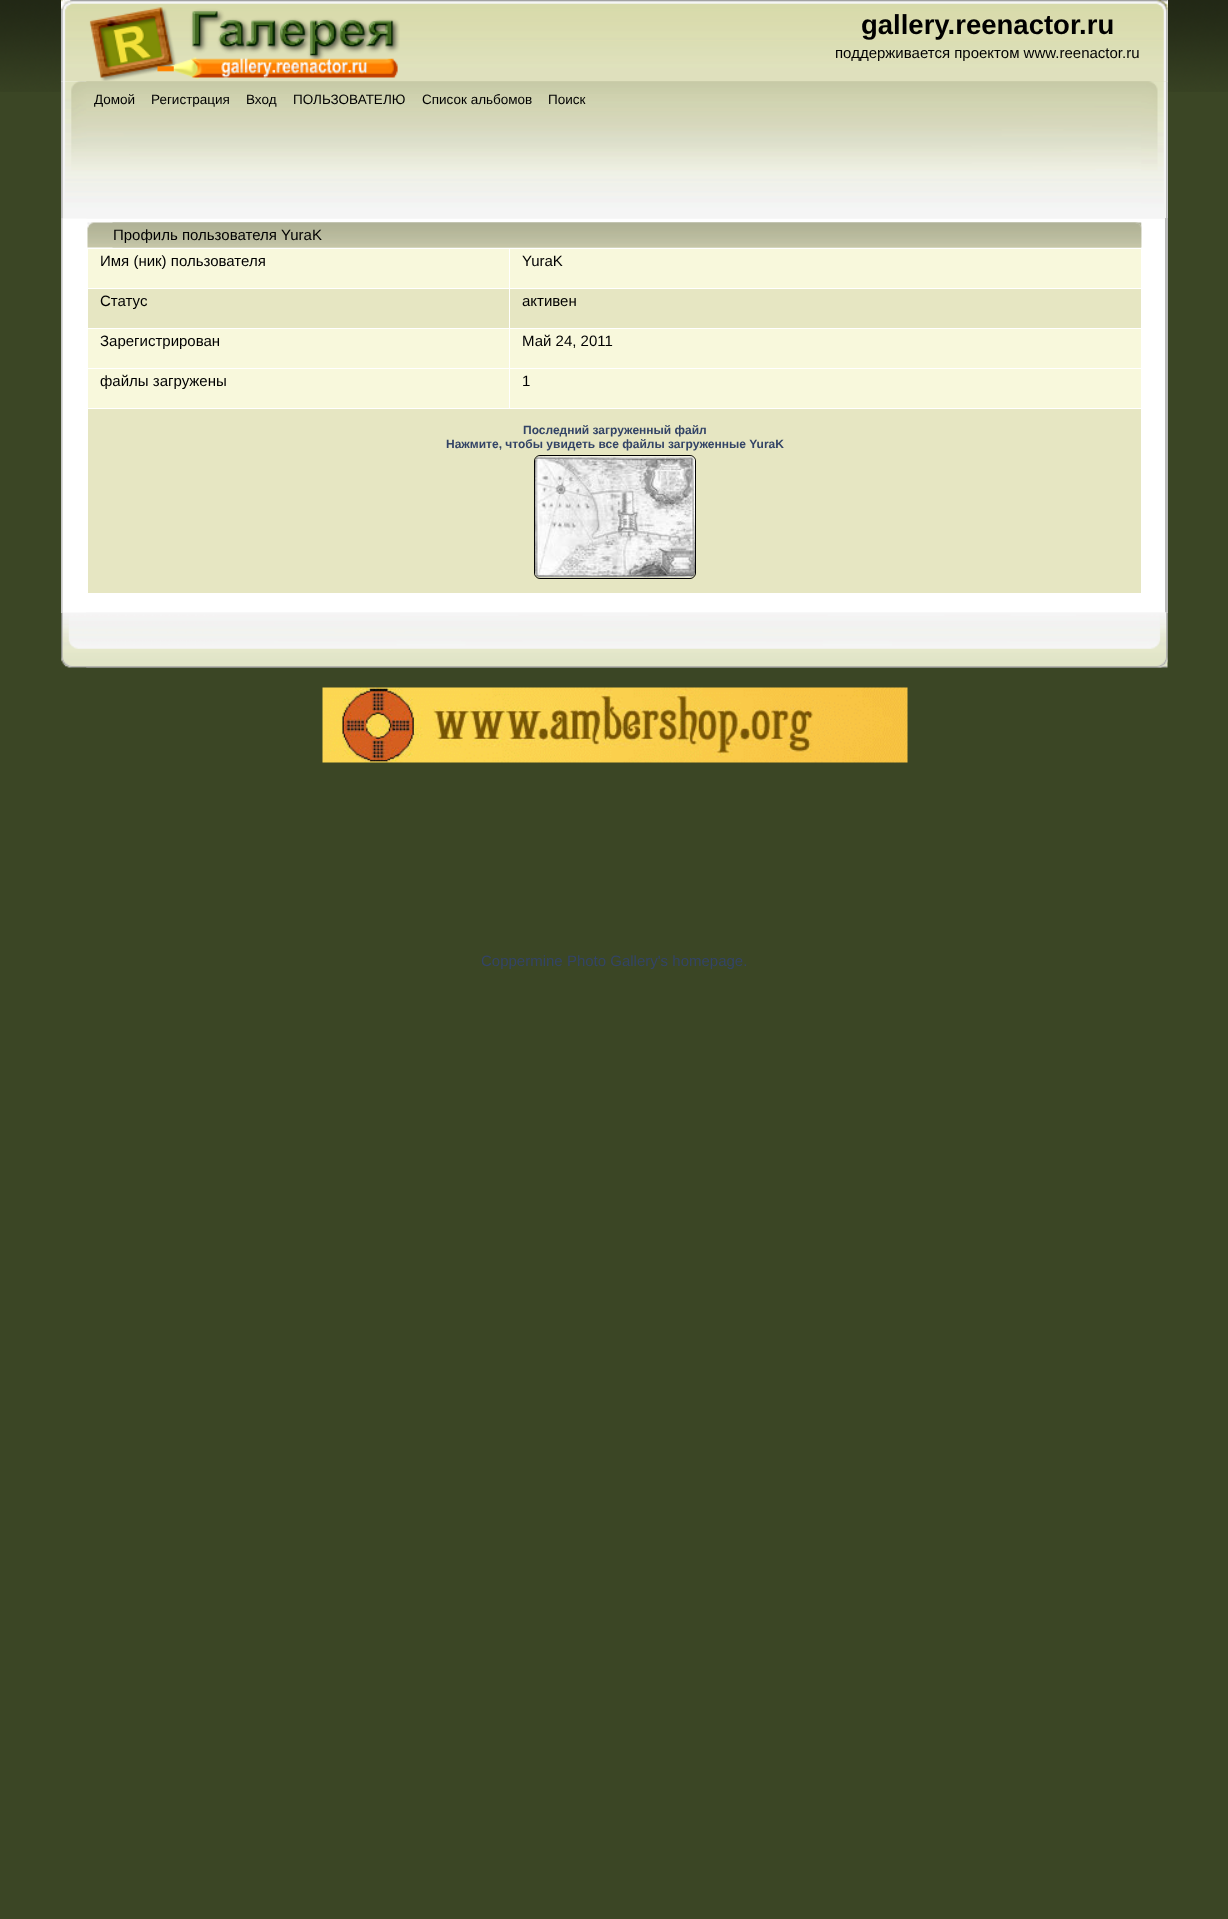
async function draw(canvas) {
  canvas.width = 1228
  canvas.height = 1919
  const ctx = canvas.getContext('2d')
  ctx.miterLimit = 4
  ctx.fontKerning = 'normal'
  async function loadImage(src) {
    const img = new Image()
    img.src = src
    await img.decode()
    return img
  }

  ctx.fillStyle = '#3b4625'
  ctx.fillRect(0, 0, 1228, 1919)
  ctx.drawImage(await loadImage('image0.png'), 0, 0, 1228, 92)
  ctx.fillStyle = '#fefefe'
  ctx.fillRect(61, 0, 1107, 219)
  ctx.drawImage(await loadImage('image1.png'), 61, 0, 1107, 81)
  ctx.drawImage(await loadImage('image2.png'), 86, 0, 1082, 81)
  ctx.drawImage(await loadImage('image3.png'), 89, 7, 311, 74)
  ctx.font = 'bold 27.5px Liberation Sans'
  ctx.fillStyle = '#000'
  ctx.fillText('gallery.reenactor.ru', 861, 34)
  ctx.font = '15px Liberation Sans'
  ctx.fillText('поддерживается проектом www.reenactor.ru', 835, 58)
  ctx.drawImage(await loadImage('image4.png'), 61, 81, 1107, 138)
  ctx.drawImage(await loadImage('image5.png'), 86, 81, 1082, 138)
  ctx.font = '13.5px Liberation Sans'
  ctx.fillText('Домой', 94, 104)
  ctx.fillText('Регистрация', 151, 104)
  ctx.fillText('Вход', 246, 104)
  ctx.fillText('ПОЛЬЗОВАТЕЛЮ', 293, 104)
  ctx.fillText('Список альбомов', 422, 104)
  ctx.fillText('Поиск', 548, 104)
  ctx.fillStyle = '#fff'
  ctx.fillRect(61, 219, 1104, 394)
  ctx.drawImage(await loadImage('image6.png'), 61, 218, 1104, 395)
  ctx.fillStyle = '#bbb'
  ctx.fillRect(1165, 218, 3, 395)
  ctx.drawImage(await loadImage('image7.png'), 87, 222, 1055, 26)
  ctx.drawImage(await loadImage('image8.png'), 112, 222, 1030, 26)
  ctx.font = '15px Liberation Sans'
  ctx.fillStyle = '#000'
  ctx.fillText('Профиль пользователя YuraK', 113, 240)
  ctx.fillStyle = '#f8f8dc'
  ctx.fillRect(88, 249, 421, 39)
  ctx.fillStyle = '#000'
  ctx.fillText('Имя (ник) пользователя', 100, 266)
  ctx.fillStyle = '#f8f8dc'
  ctx.fillRect(510, 249, 631, 39)
  ctx.fillStyle = '#000'
  ctx.fillText('YuraK', 522, 266)
  ctx.fillStyle = '#e6e6c2'
  ctx.fillRect(88, 289, 421, 39)
  ctx.fillStyle = '#000'
  ctx.fillText('Статус', 100, 306)
  ctx.fillStyle = '#e6e6c2'
  ctx.fillRect(510, 289, 631, 39)
  ctx.fillStyle = '#000'
  ctx.fillText('активен', 522, 306)
  ctx.fillStyle = '#f8f8dc'
  ctx.fillRect(88, 329, 421, 39)
  ctx.fillStyle = '#000'
  ctx.fillText('Зарегистрирован', 100, 346)
  ctx.fillStyle = '#f8f8dc'
  ctx.fillRect(510, 329, 631, 39)
  ctx.fillStyle = '#000'
  ctx.fillText('Май 24, 2011', 522, 346)
  ctx.fillStyle = '#f8f8dc'
  ctx.fillRect(88, 369, 421, 39)
  ctx.fillStyle = '#000'
  ctx.fillText('файлы загружены', 100, 386)
  ctx.fillStyle = '#f8f8dc'
  ctx.fillRect(510, 369, 631, 39)
  ctx.fillStyle = '#000'
  ctx.fillText('1', 522, 386)
  ctx.fillStyle = '#e6e6c2'
  ctx.fillRect(88, 409, 1053, 184)
  ctx.font = 'bold 12px Liberation Sans'
  ctx.fillStyle = '#346'
  ctx.fillText('Последний загруженный файл', 523, 434)
  ctx.fillText('Нажмите, чтобы увидеть все файлы загруженные YuraK', 446, 448)
  ctx.beginPath()
  ctx.roundRect(534.5, 455.5, 161, 123, 5.5)
  ctx.strokeStyle = '#000'
  ctx.stroke()
  ctx.drawImage(await loadImage('image9.png'), 535, 456, 160, 122)
  ctx.drawImage(await loadImage('image10.png'), 61, 612, 1107, 56)
  ctx.drawImage(await loadImage('image11.png'), 86, 612, 1082, 56)
  ctx.drawImage(await loadImage('image12.png'), 322, 687, 586, 76)
  ctx.font = '15px Liberation Sans'
  ctx.fillText('Coppermine Photo Gallery\'s homepage.', 481, 966)
}

draw(document.querySelector('canvas'))
